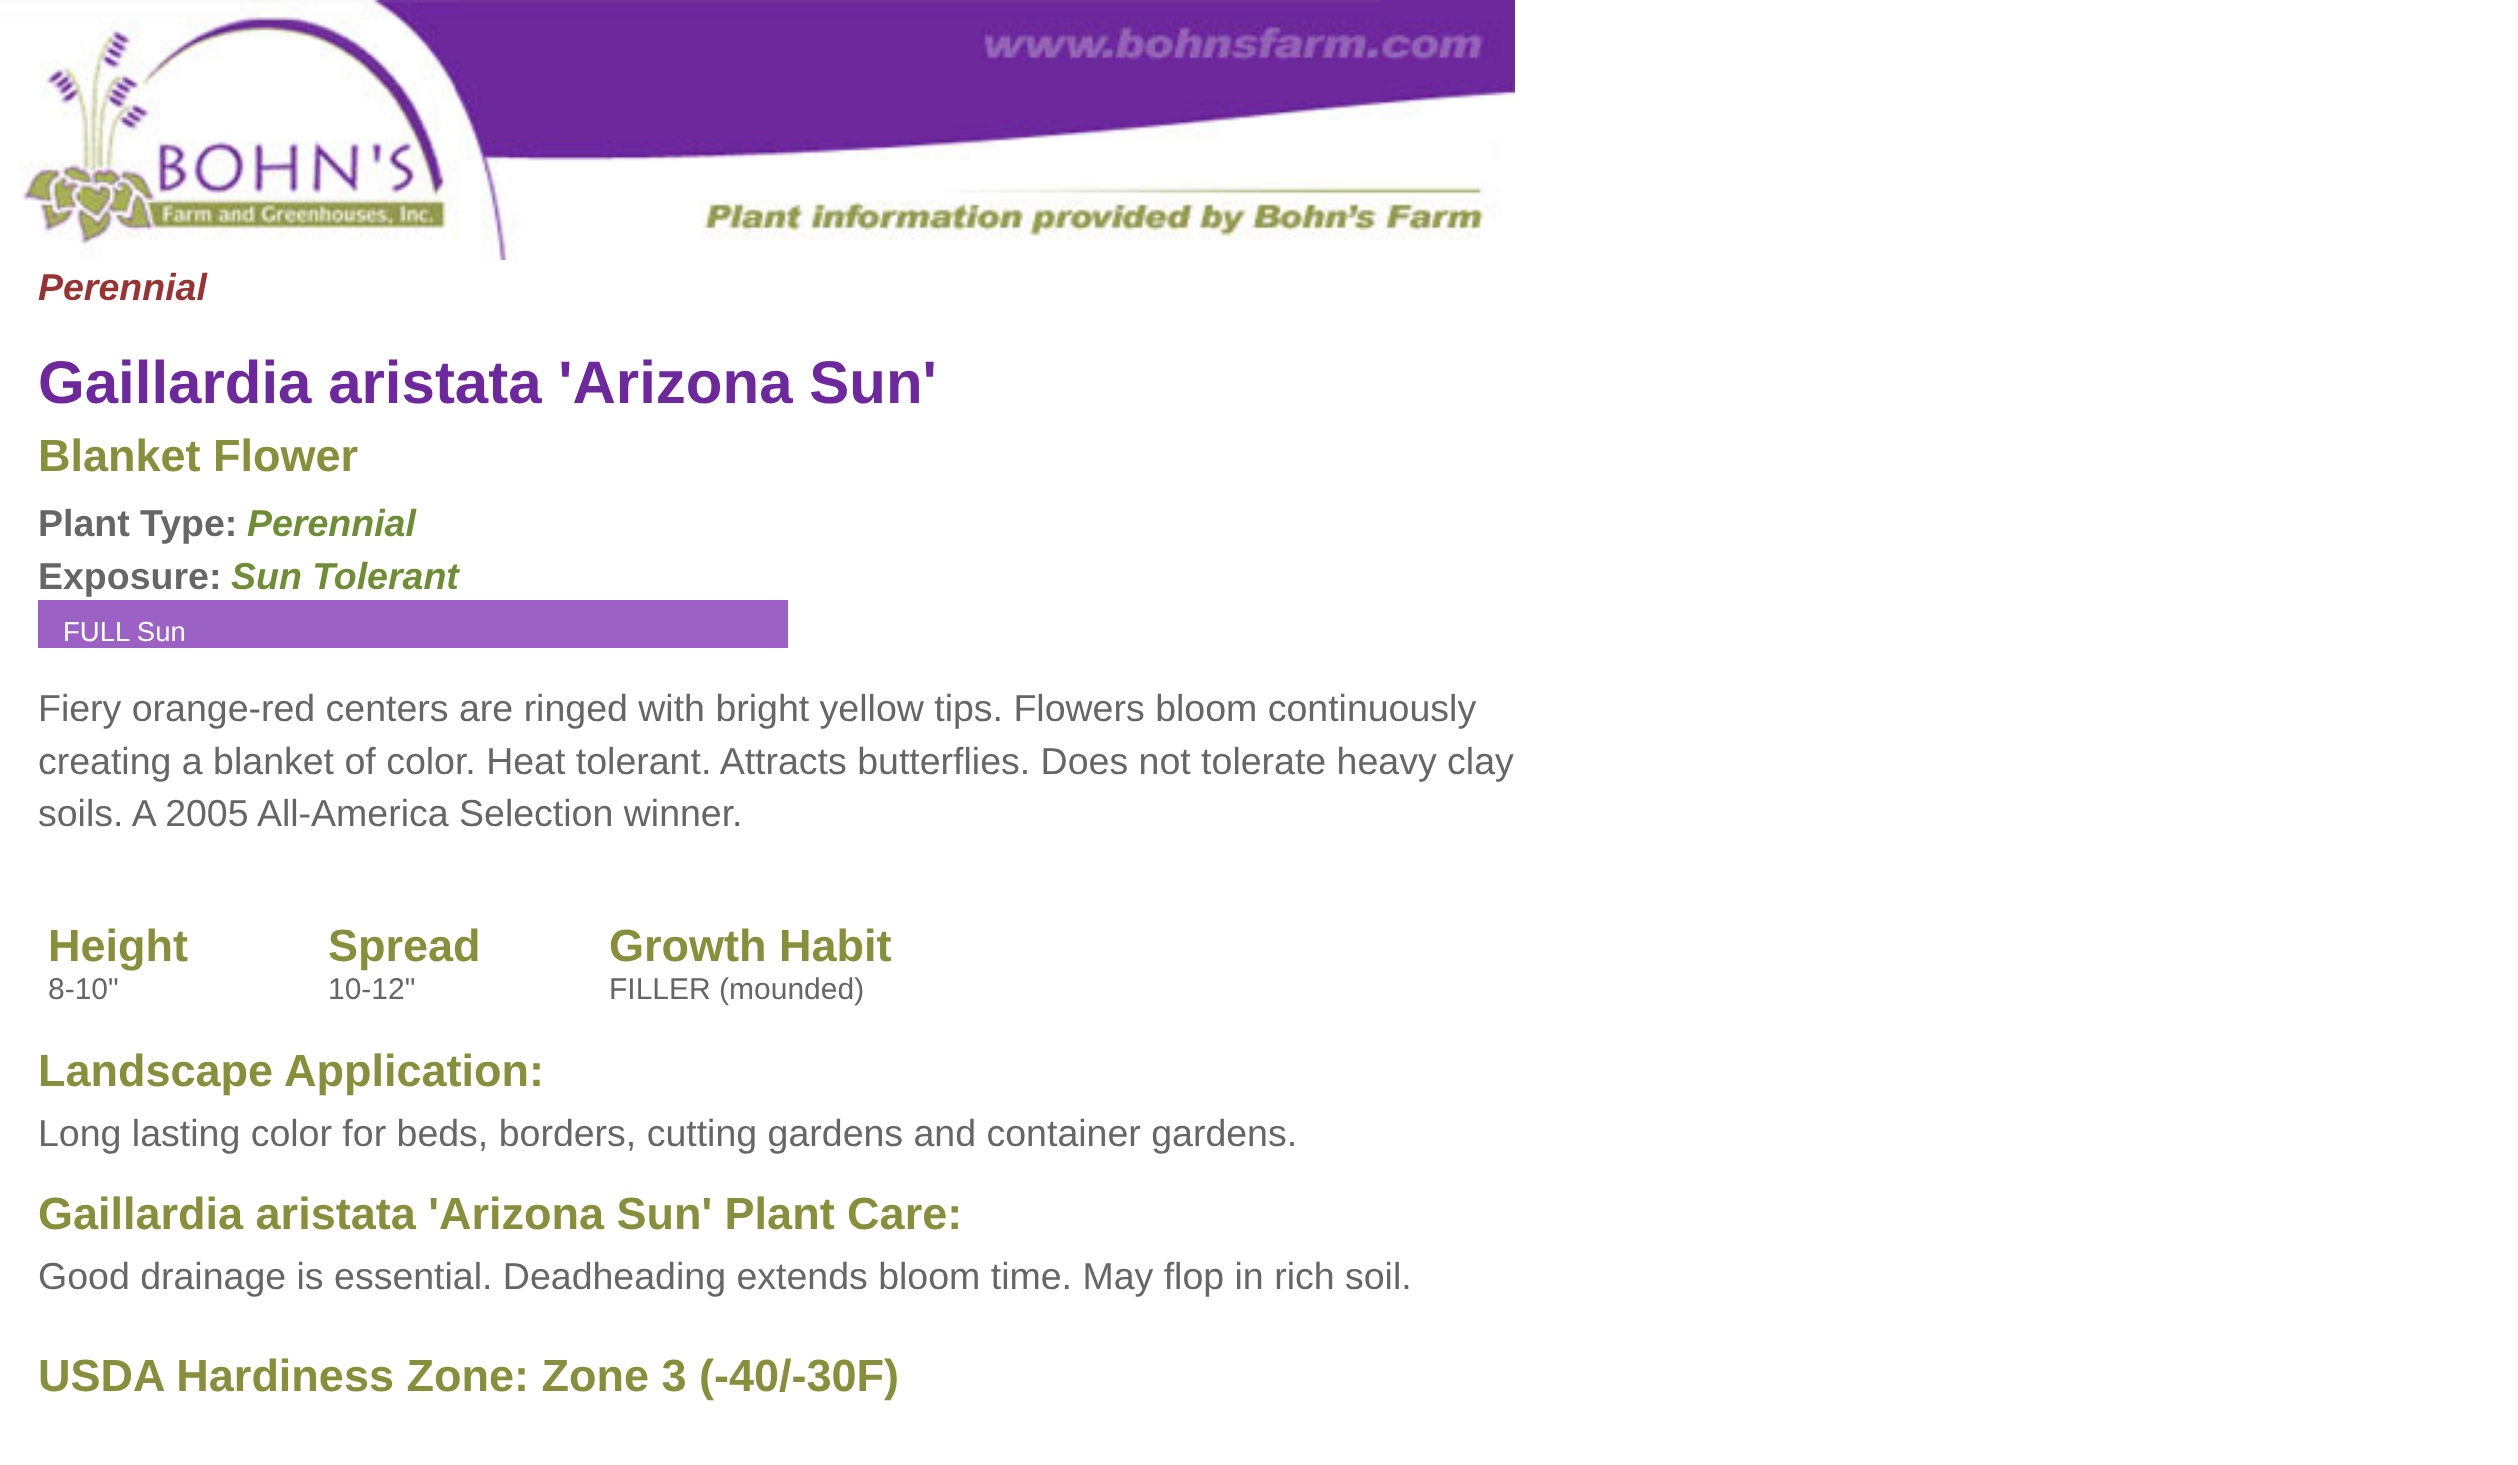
async function draw(canvas) {
  canvas.width = 2518
  canvas.height = 1465
  const ctx = canvas.getContext('2d')
  ctx.miterLimit = 4
  ctx.fontKerning = 'normal'
  async function loadImage(src) {
    const img = new Image()
    img.src = src
    await img.decode()
    return img
  }

  ctx.fillStyle = '#fff'
  ctx.fillRect(0, 0, 2518, 1465)
  ctx.drawImage(await loadImage('image0.png'), 0, 0, 1515, 260)
  ctx.font = 'italic bold 37.5px Liberation Sans'
  ctx.fillStyle = '#933'
  ctx.fillText('Perennial', 38, 300)
  ctx.font = 'bold 60px Liberation Sans'
  ctx.fillStyle = '#6c289c'
  ctx.fillText('Gaillardia aristata \'Arizona Sun\'', 38, 403)
  ctx.font = 'bold 45px Liberation Sans'
  ctx.fillStyle = '#888f3b'
  ctx.fillText('Blanket Flower', 38, 471)
  ctx.font = 'bold 37.5px Liberation Sans'
  ctx.fillStyle = '#666'
  ctx.fillText('Plant Type:', 38, 536)
  ctx.font = 'italic bold 37.5px Liberation Sans'
  ctx.fillStyle = '#6e8d35'
  ctx.fillText('Perennial', 247, 536)
  ctx.font = 'bold 37.5px Liberation Sans'
  ctx.fillStyle = '#666'
  ctx.fillText('Exposure:', 38, 589)
  ctx.font = 'italic bold 37.5px Liberation Sans'
  ctx.fillStyle = '#6e8d35'
  ctx.fillText('Sun Tolerant', 231, 589)
  ctx.fillStyle = '#9c61c5'
  ctx.fillRect(38, 600, 750, 48)
  ctx.font = '27.5px Liberation Sans'
  ctx.fillStyle = '#fff'
  ctx.fillText('FULL Sun', 63, 641)
  ctx.font = '37.5px Liberation Sans'
  ctx.fillStyle = '#666'
  ctx.fillText('Fiery orange-red centers are ringed with bright yellow tips. Flowers bloom continuously', 38, 721)
  ctx.fillText('creating a blanket of color. Heat tolerant. Attracts butterflies. Does not tolerate heavy clay', 38, 774)
  ctx.fillText('soils. A 2005 All-America Selection winner.', 38, 826)
  ctx.font = 'bold 45px Liberation Sans'
  ctx.fillStyle = '#888f3b'
  ctx.fillText('Height', 48, 961)
  ctx.font = '30px Liberation Sans'
  ctx.fillStyle = '#666'
  ctx.fillText('8-10"', 48, 999)
  ctx.font = 'bold 45px Liberation Sans'
  ctx.fillStyle = '#888f3b'
  ctx.fillText('Spread', 328, 961)
  ctx.font = '30px Liberation Sans'
  ctx.fillStyle = '#666'
  ctx.fillText('10-12"', 328, 999)
  ctx.font = 'bold 45px Liberation Sans'
  ctx.fillStyle = '#888f3b'
  ctx.fillText('Growth Habit', 609, 961)
  ctx.font = '30px Liberation Sans'
  ctx.fillStyle = '#666'
  ctx.fillText('FILLER (mounded)', 609, 999)
  ctx.font = 'bold 45px Liberation Sans'
  ctx.fillStyle = '#888f3b'
  ctx.fillText('Landscape Application:', 38, 1086)
  ctx.font = '37.5px Liberation Sans'
  ctx.fillStyle = '#666'
  ctx.fillText('Long lasting color for beds, borders, cutting gardens and container gardens.', 38, 1146)
  ctx.font = 'bold 45px Liberation Sans'
  ctx.fillStyle = '#888f3b'
  ctx.fillText('Gaillardia aristata \'Arizona Sun\' Plant Care:', 38, 1229)
  ctx.font = '37.5px Liberation Sans'
  ctx.fillStyle = '#666'
  ctx.fillText('Good drainage is essential. Deadheading extends bloom time. May flop in rich soil.', 38, 1289)
  ctx.font = 'bold 45px Liberation Sans'
  ctx.fillStyle = '#888f3b'
  ctx.fillText('USDA Hardiness Zone: Zone 3 (-40/-30F)', 38, 1391)
}

draw(document.querySelector('canvas'))
